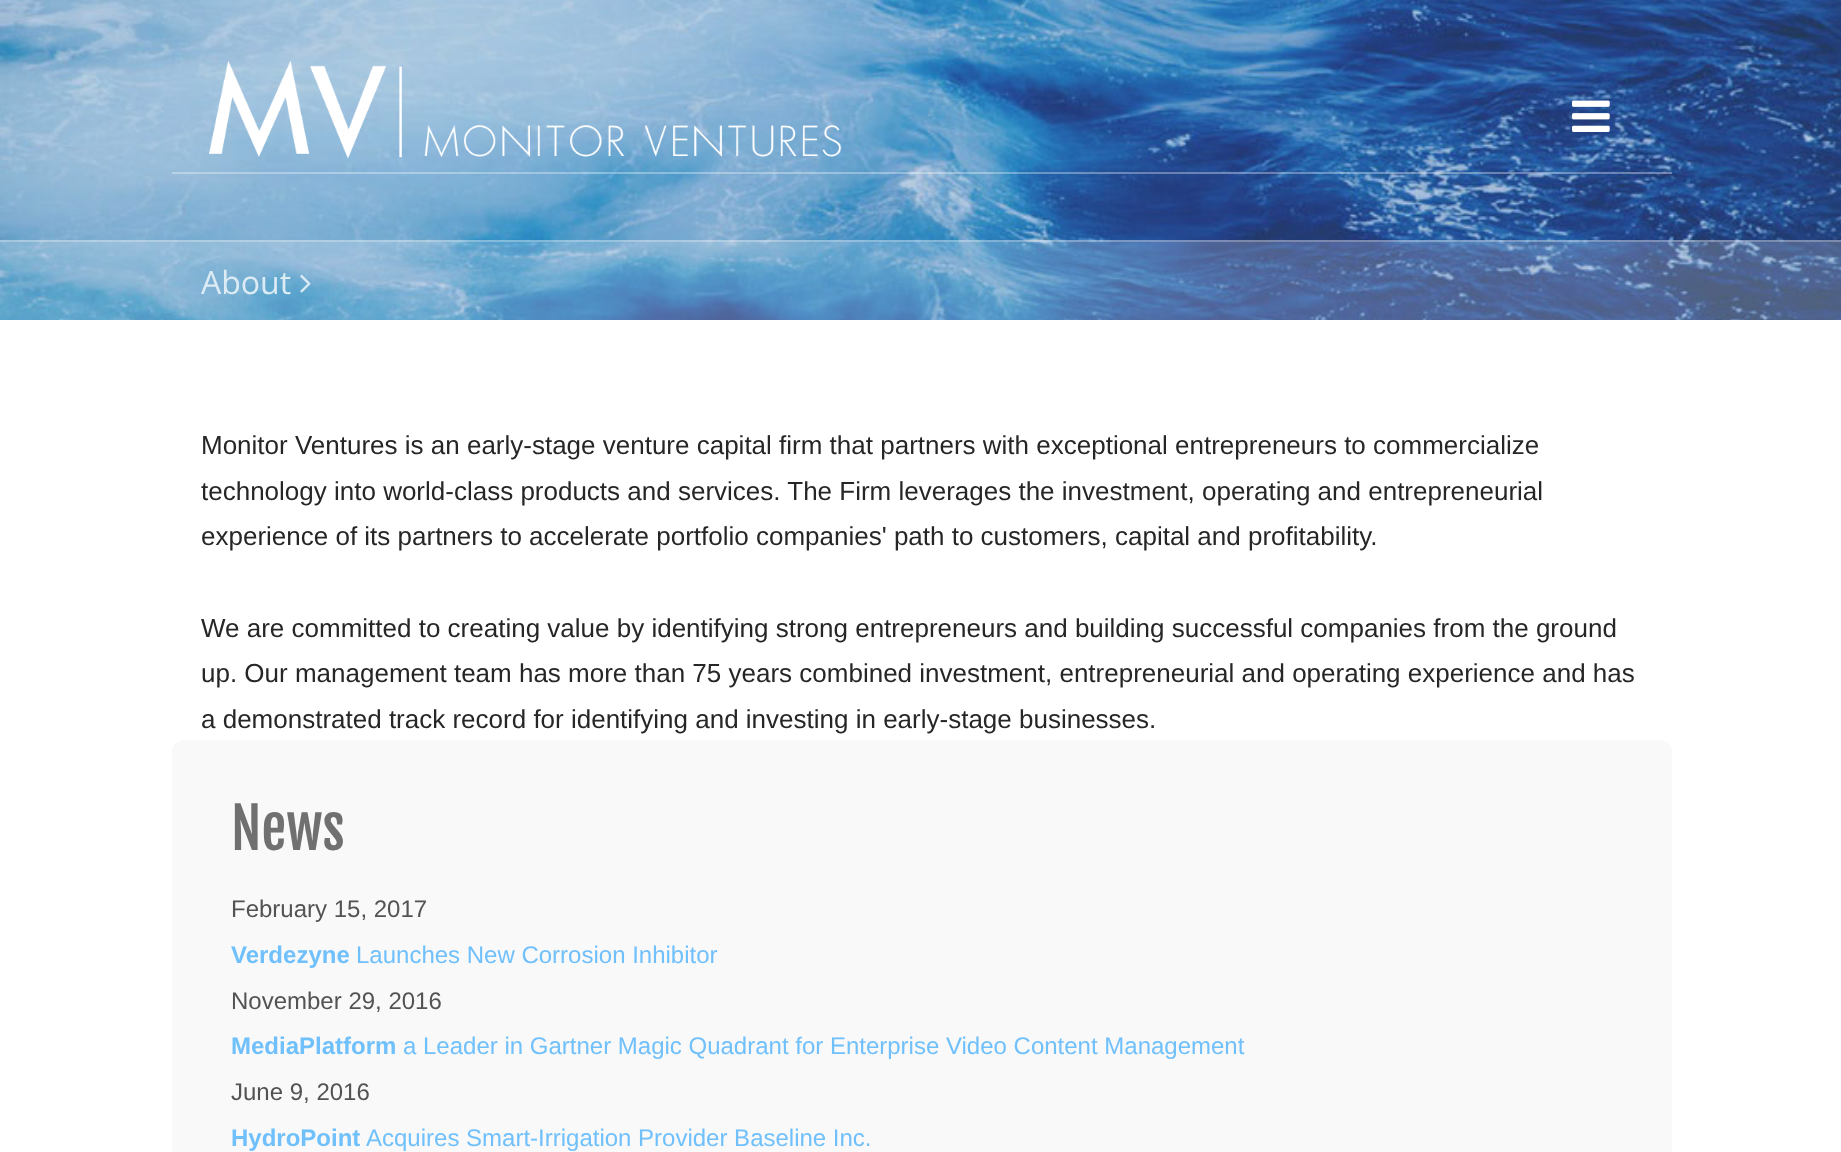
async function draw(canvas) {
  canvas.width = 1841
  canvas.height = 1152
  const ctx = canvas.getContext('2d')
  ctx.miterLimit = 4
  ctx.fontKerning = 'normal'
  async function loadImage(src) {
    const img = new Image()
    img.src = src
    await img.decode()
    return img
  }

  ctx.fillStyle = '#fff'
  ctx.fillRect(0, 0, 1841, 1152)
  ctx.drawImage(await loadImage('image0.png'), 0, 0, 1841, 320)
  ctx.fillStyle = '#ffffff54'
  ctx.fillRect(172, 172, 1500, 2)
  ctx.drawImage(await loadImage('image1.png'), 209, 61, 633, 98)
  ctx.drawImage(await loadImage('image2.png'), 1572, 100, 38, 32)
  ctx.fillStyle = '#ffffff33'
  ctx.fillRect(0, 240, 1841, 80)
  ctx.fillStyle = '#ffffff40'
  ctx.fillRect(0, 240, 1841, 2)
  ctx.font = '32px Open Sans'
  ctx.fillStyle = '#dcebf4'
  ctx.fillText('About', 201, 294)
  ctx.drawImage(await loadImage('image3.png'), 300, 274, 11, 19)
  ctx.font = '26px Liberation Sans'
  ctx.fillStyle = '#262626'
  ctx.fillText('Monitor Ventures is an early-stage venture capital firm that partners with exceptional entrepreneurs to commercialize', 201, 454)
  ctx.fillText('technology into world-class products and services. The Firm leverages the investment, operating and entrepreneurial', 201, 500)
  ctx.fillText('experience of its partners to accelerate portfolio companies\' path to customers, capital and profitability.', 201, 545)
  ctx.fillText('We are committed to creating value by identifying strong entrepreneurs and building successful companies from the ground', 201, 637)
  ctx.fillText('up. Our management team has more than 75 years combined investment, entrepreneurial and operating experience and has', 201, 682)
  ctx.fillText('a demonstrated track record for identifying and investing in early-stage businesses.', 201, 728)
  ctx.fillStyle = '#f9f9f9'
  ctx.beginPath()
  ctx.roundRect(172, 740, 1500, 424, 12)
  ctx.fill()
  ctx.font = '56px Fjalla One'
  ctx.fillStyle = '#707070'
  ctx.fillText('News', 231, 850)
  ctx.font = '24px Liberation Sans'
  ctx.fillStyle = '#535353'
  ctx.fillText('February 15, 2017', 231, 917)
  ctx.font = 'bold 24px Liberation Sans'
  ctx.fillStyle = '#70c0fc'
  ctx.fillText('Verdezyne', 231, 963)
  ctx.font = '24px Liberation Sans'
  ctx.fillText('Launches New Corrosion Inhibitor', 356, 963)
  ctx.fillStyle = '#535353'
  ctx.fillText('November 29, 2016', 231, 1009)
  ctx.font = 'bold 24px Liberation Sans'
  ctx.fillStyle = '#70c0fc'
  ctx.fillText('MediaPlatform', 231, 1054)
  ctx.font = '24px Liberation Sans'
  ctx.fillText('a Leader in Gartner Magic Quadrant for Enterprise Video Content Management', 403, 1054)
  ctx.fillStyle = '#535353'
  ctx.fillText('June 9, 2016', 231, 1100)
  ctx.font = 'bold 24px Liberation Sans'
  ctx.fillStyle = '#70c0fc'
  ctx.fillText('HydroPoint', 231, 1146)
  ctx.font = '24px Liberation Sans'
  ctx.fillText('Acquires Smart-Irrigation Provider Baseline Inc.', 366, 1146)
}

draw(document.querySelector('canvas'))
